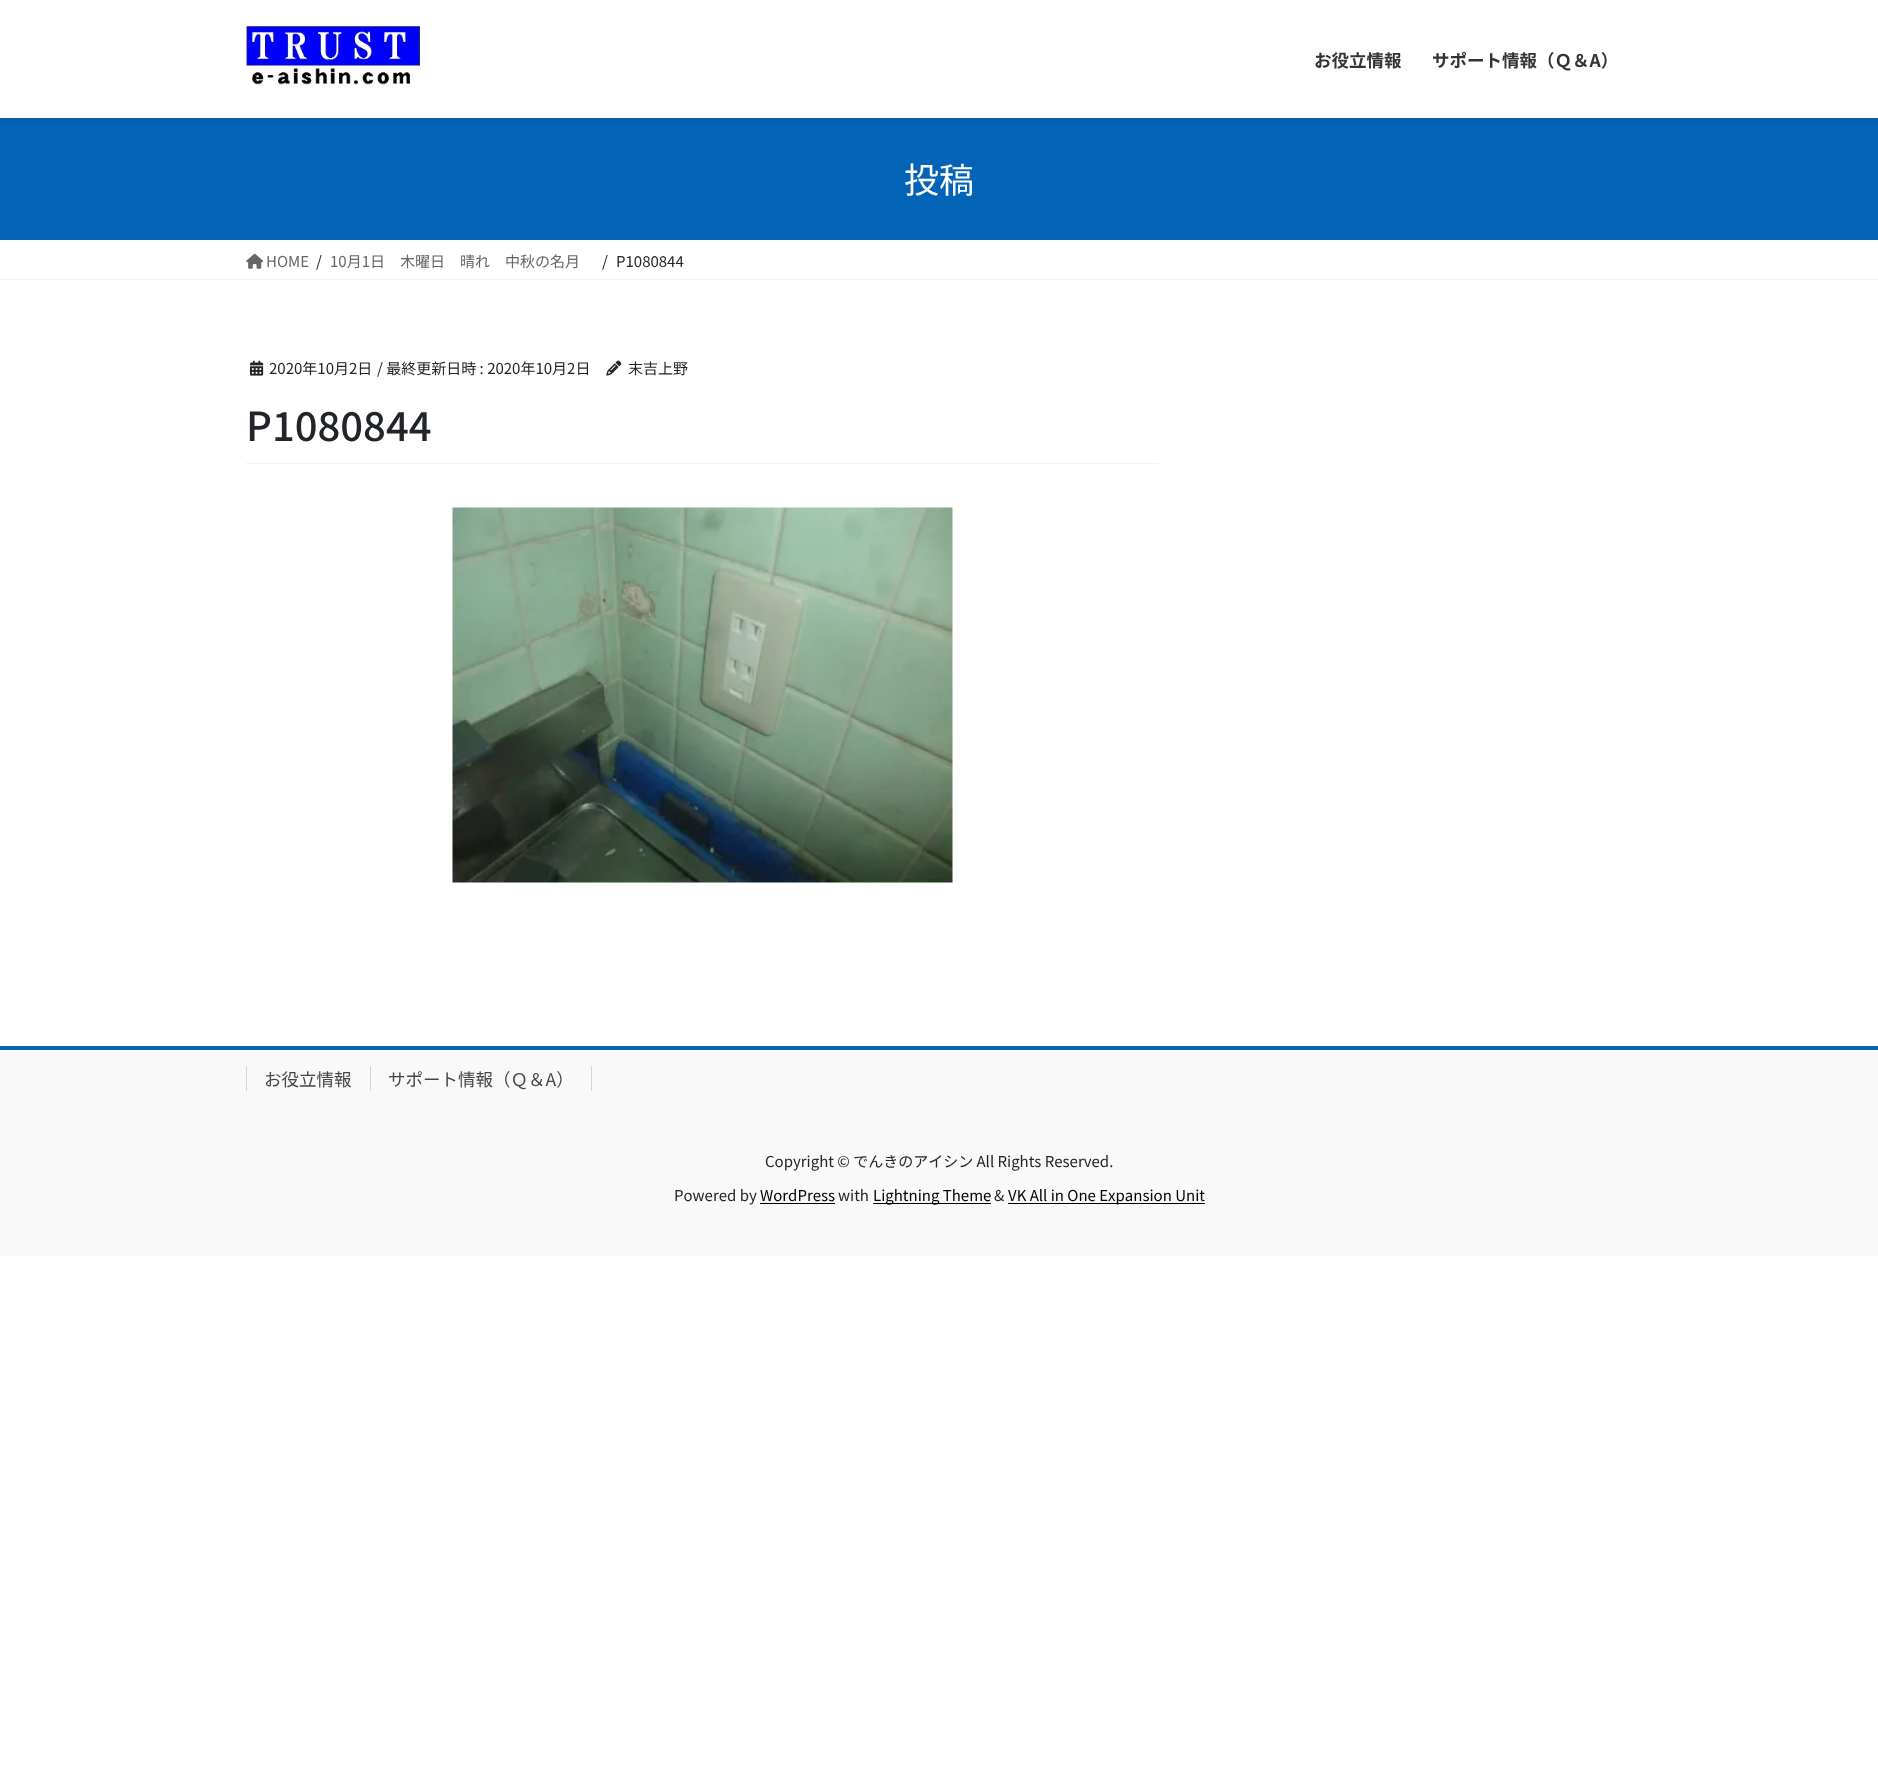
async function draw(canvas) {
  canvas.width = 1878
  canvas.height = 1769
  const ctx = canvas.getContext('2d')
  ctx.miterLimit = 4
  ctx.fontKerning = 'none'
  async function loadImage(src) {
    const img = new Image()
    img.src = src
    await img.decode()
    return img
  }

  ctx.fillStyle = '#fff'
  ctx.fillRect(0, 0, 1878, 1769)
  ctx.fillStyle = '#0363b7'
  ctx.fillRect(0, 118, 1878, 122)
  ctx.fillStyle = '#0000001a'
  ctx.filter = 'blur(2px)'
  ctx.beginPath()
  ctx.rect(0, 1, 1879, 118)
  ctx.fill()
  ctx.filter = 'none'
  ctx.fillStyle = '#fff'
  ctx.fillRect(0, 0, 1878, 118)
  ctx.drawImage(await loadImage('image0.png'), 246, 26, 175, 61)
  ctx.font = 'bold 17.5px Noto Sans JP'
  ctx.fillStyle = '#333'
  ctx.fillText('お役立情報', 1314, 67)
  ctx.fillText('サポート情報（Ｑ＆A）', 1432, 67)
  ctx.font = '35px Noto Sans JP'
  ctx.fillStyle = '#fff'
  ctx.fillText('投稿', 904, 193)
  ctx.fillStyle = '#f2f2f2'
  ctx.fillRect(0, 279, 1878, 1)
  ctx.drawImage(await loadImage('image1.png'), 246, 253, 18, 16)
  ctx.font = '15px Noto Sans JP'
  ctx.fillStyle = '#666'
  ctx.fillText('HOME', 266, 267)
  ctx.fillStyle = '#212529'
  ctx.fillText('/', 316, 267)
  ctx.fillStyle = '#666'
  ctx.fillText('10月1日　木曜日　晴れ　中秋の名月', 330, 267)
  ctx.fillStyle = '#212529'
  ctx.fillText('/', 602, 267)
  ctx.fillText('P1080844', 616, 267)
  ctx.fillStyle = '#f2f2f2'
  ctx.fillRect(246, 463, 913, 1)
  ctx.drawImage(await loadImage('image2.png'), 250, 360, 14, 16)
  ctx.fillStyle = '#212529'
  ctx.fillText('2020年10月2日', 269, 374)
  ctx.fillText('/ 最終更新日時 : 2020年10月2日', 377, 374)
  ctx.drawImage(await loadImage('image3.png'), 606, 360, 16, 16)
  ctx.fillText('末吉上野', 628, 374)
  ctx.font = '500 40px Noto Sans JP'
  ctx.fillText('P1080844', 246, 441)
  ctx.drawImage(await loadImage('image4.png'), 452, 507, 501, 376)
  ctx.fillStyle = '#f9f9f9'
  ctx.fillRect(0, 1050, 1878, 206)
  ctx.fillStyle = '#0363b7'
  ctx.fillRect(0, 1046, 1878, 4)
  ctx.font = '17.5px Noto Sans JP'
  ctx.fillStyle = '#464646'
  ctx.fillText('お役立情報', 264, 1086)
  ctx.fillStyle = '#d4d4d4'
  ctx.fillRect(246, 1066, 1, 25)
  ctx.fillStyle = '#464646'
  ctx.fillText('サポート情報（Ｑ＆A）', 388, 1086)
  ctx.fillStyle = '#d4d4d4'
  ctx.fillRect(591, 1066, 1, 25)
  ctx.fillRect(370, 1066, 1, 25)
  ctx.font = '15px Noto Sans JP'
  ctx.fillStyle = '#212529'
  ctx.fillText('Copyright © でんきのアイシン All Rights Reserved.', 765, 1167)
  ctx.fillText('Powered by', 674, 1201)
  ctx.fillStyle = '#000'
  ctx.fillText('WordPress', 760, 1201)
  ctx.fillRect(760, 1203, 75, 1)
  ctx.fillStyle = '#212529'
  ctx.fillText('with', 838, 1201)
  ctx.fillStyle = '#000'
  ctx.fillRect(873, 1203, 118, 1)
  ctx.fillText('Lightning Theme', 873, 1201)
  ctx.fillStyle = '#212529'
  ctx.fillText('&', 994, 1201)
  ctx.fillStyle = '#000'
  ctx.fillRect(1008, 1203, 197, 1)
  ctx.fillText('VK All in One Expansion Unit', 1008, 1201)
}

draw(document.querySelector('canvas'))
